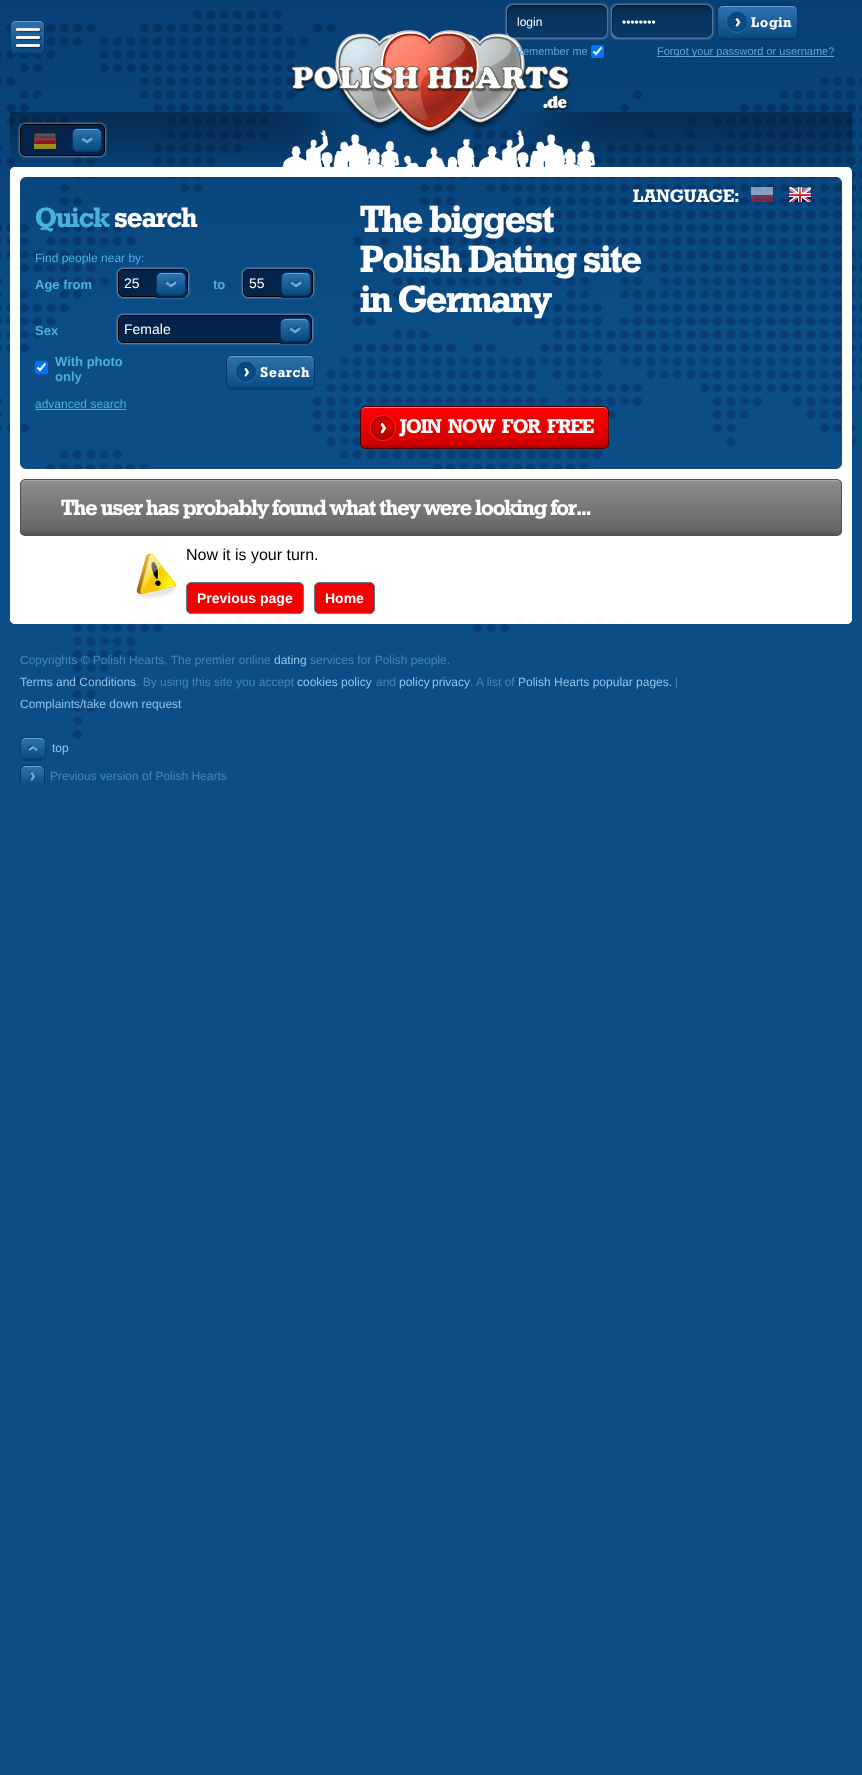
async function draw(canvas) {
  canvas.width = 862
  canvas.height = 1775
  const ctx = canvas.getContext('2d')
  ctx.miterLimit = 4
  ctx.fontKerning = 'normal'
  async function loadImage(src) {
    const img = new Image()
    img.src = src
    await img.decode()
    return img
  }
  let gradient

  ctx.fillStyle = '#0b4e87'
  ctx.fillRect(0, 0, 862, 1775)
  ctx.drawImage(await loadImage('image0.png'), 0, 0, 862, 739)
  ctx.drawImage(await loadImage('image1.png'), 10, 112, 842, 55)
  ctx.drawImage(await loadImage('image2.png'), 10, 20, 35, 35)
  ctx.drawImage(await loadImage('image3.png'), 291, 30, 280, 109)
  ctx.fillStyle = '#ccc'
  ctx.filter = 'blur(1.5px)'
  ctx.beginPath()
  ctx.roundRect(20, 124, 85, 32, 5)
  ctx.fill()
  ctx.filter = 'none'
  ctx.fillStyle = '#03234b'
  ctx.beginPath()
  ctx.roundRect(20.5, 124.5, 84, 31, 4.5)
  ctx.fill()
  ctx.strokeStyle = '#000'
  ctx.stroke()
  ctx.fillStyle = '#162232'
  ctx.fillRect(33, 129, 25, 20)
  ctx.drawImage(await loadImage('image4.png'), 34, 133, 22, 16)
  ctx.drawImage(await loadImage('image5.png'), 72, 128, 30, 24)
  ctx.fillStyle = '#ccc'
  ctx.filter = 'blur(1.5px)'
  ctx.beginPath()
  ctx.roundRect(507, 5, 100, 33, 5)
  ctx.fill()
  ctx.filter = 'none'
  ctx.drawImage(await loadImage('image6.png'), 507, 5, 100, 33)
  ctx.font = '12px Liberation Sans'
  ctx.fillStyle = '#fff'
  ctx.fillText('login', 517, 26)
  ctx.fillStyle = '#ccc'
  ctx.filter = 'blur(1.5px)'
  ctx.beginPath()
  ctx.roundRect(612, 5, 100, 33, 5)
  ctx.fill()
  ctx.filter = 'none'
  ctx.drawImage(await loadImage('image7.png'), 612, 5, 100, 33)
  ctx.fillStyle = '#fff'
  ctx.fillText('••••••••', 622, 26)
  ctx.drawImage(await loadImage('image8.png'), 792, 5, 6, 35)
  ctx.drawImage(await loadImage('image9.png'), 717, 5, 75, 35)
  ctx.letterSpacing = '0.75px'
  ctx.font = 'bold 14px "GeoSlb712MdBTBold"'
  ctx.fillText('Login', 751, 27)
  ctx.letterSpacing = '0px'
  ctx.font = '11px Liberation Sans'
  ctx.fillStyle = '#61a3da'
  ctx.fillText('Remember me', 515, 55)
  ctx.fillStyle = '#0075ff'
  ctx.beginPath()
  ctx.roundRect(591, 45, 13, 13, 2)
  ctx.fill()
  ctx.beginPath()
  ctx.moveTo(593.5, 51.5)
  ctx.lineTo(596, 54)
  ctx.lineTo(601.5, 47.5)
  ctx.strokeStyle = '#fff'
  ctx.lineWidth = 2.1
  ctx.stroke()
  ctx.fillStyle = '#61a3da'
  ctx.fillRect(657, 56, 177, 1)
  ctx.fillText('Forgot your password or username?', 657, 55)
  ctx.font = 'bold 18px "GeoSlb712MdBTBold"'
  ctx.fillStyle = '#fff'
  ctx.fillText('LANGUAGE:', 633, 202)
  ctx.drawImage(await loadImage('image10.png'), 750, 186, 24, 16)
  ctx.drawImage(await loadImage('image11.png'), 788, 186, 24, 16)
  ctx.beginPath()
  ctx.moveTo(15, 167)
  ctx.lineTo(847, 167)
  ctx.bezierCurveTo(850, 167, 852, 169, 852, 172)
  ctx.lineTo(852, 469)
  ctx.lineTo(10, 469)
  ctx.lineTo(10, 172)
  ctx.bezierCurveTo(10, 169, 12, 167, 15, 167)
  ctx.closePath()
  ctx.moveTo(20, 177)
  ctx.lineTo(842, 177)
  ctx.lineTo(842, 469)
  ctx.lineTo(20, 469)
  ctx.closePath()
  ctx.fill('evenodd')
  ctx.drawImage(await loadImage('image12.png'), 836, 177, 6, 6)
  ctx.drawImage(await loadImage('image13.png'), 20, 177, 6, 6)
  ctx.letterSpacing = '-1px'
  ctx.font = 'bold 28px "GeoSlb712MdBTBold"'
  ctx.fillStyle = '#49b1df'
  ctx.fillText('Quick', 35, 227)
  ctx.fillStyle = '#fff'
  ctx.fillText('search', 114, 227)
  ctx.letterSpacing = '0px'
  ctx.font = '12px Liberation Sans'
  ctx.fillStyle = '#49b1df'
  ctx.fillText('Find people near by:', 35, 262)
  ctx.font = 'bold 13px Liberation Sans'
  ctx.fillText('Age from', 35, 289)
  ctx.fillStyle = '#ccc'
  ctx.filter = 'blur(1.5px)'
  ctx.beginPath()
  ctx.roundRect(118, 269, 70, 28, 5)
  ctx.fill()
  ctx.filter = 'none'
  ctx.fillStyle = '#03234b'
  ctx.beginPath()
  ctx.roundRect(118.5, 269.5, 69, 27, 4.5)
  ctx.fill()
  ctx.strokeStyle = '#000'
  ctx.lineWidth = 1
  ctx.stroke()
  ctx.font = '14px Liberation Sans'
  ctx.fillStyle = '#fff'
  ctx.fillText('25', 124, 288)
  ctx.fillStyle = '#03234b'
  ctx.beginPath()
  ctx.roundRect(156, 272, 30, 26, [0, 3, 3, 0])
  ctx.fill()
  ctx.drawImage(await loadImage('image14.png'), 156, 272, 30, 24)
  ctx.font = 'bold 13px Liberation Sans'
  ctx.fillStyle = '#49b1df'
  ctx.fillText('to', 213, 289)
  ctx.fillStyle = '#ccc'
  ctx.filter = 'blur(1.5px)'
  ctx.beginPath()
  ctx.roundRect(243, 269, 70, 28, 5)
  ctx.fill()
  ctx.filter = 'none'
  ctx.fillStyle = '#03234b'
  ctx.beginPath()
  ctx.roundRect(243.5, 269.5, 69, 27, 4.5)
  ctx.fill()
  ctx.stroke()
  ctx.font = '14px Liberation Sans'
  ctx.fillStyle = '#fff'
  ctx.fillText('55', 249, 288)
  ctx.fillStyle = '#03234b'
  ctx.beginPath()
  ctx.roundRect(281, 272, 30, 26, [0, 3, 3, 0])
  ctx.fill()
  ctx.drawImage(await loadImage('image14.png'), 281, 272, 30, 24)
  ctx.font = 'bold 13px Liberation Sans'
  ctx.fillStyle = '#49b1df'
  ctx.fillText('Sex', 35, 335)
  ctx.fillStyle = '#ccc'
  ctx.filter = 'blur(1.5px)'
  ctx.beginPath()
  ctx.roundRect(118, 315, 194, 28, 5)
  ctx.fill()
  ctx.filter = 'none'
  ctx.fillStyle = '#03234b'
  ctx.beginPath()
  ctx.roundRect(118.5, 315.5, 193, 27, 4.5)
  ctx.fill()
  ctx.stroke()
  ctx.font = '14px Liberation Sans'
  ctx.fillStyle = '#fff'
  ctx.fillText('Female', 124, 334)
  ctx.fillStyle = '#03234b'
  ctx.beginPath()
  ctx.roundRect(280, 318, 30, 26, [0, 3, 3, 0])
  ctx.fill()
  ctx.drawImage(await loadImage('image14.png'), 280, 318, 30, 24)
  ctx.fillStyle = '#0075ff'
  ctx.beginPath()
  ctx.roundRect(35, 361, 13, 13, 2)
  ctx.fill()
  ctx.beginPath()
  ctx.moveTo(37.5, 367.5)
  ctx.lineTo(40, 370)
  ctx.lineTo(45.5, 363.5)
  ctx.strokeStyle = '#fff'
  ctx.lineWidth = 2.1
  ctx.stroke()
  ctx.font = 'bold 13px Liberation Sans'
  ctx.fillStyle = '#49b1df'
  ctx.fillText('With photo', 55, 366)
  ctx.fillText('only', 55, 381)
  ctx.drawImage(await loadImage('image15.png'), 310, 355, 5, 35)
  ctx.drawImage(await loadImage('image16.png'), 226, 355, 84, 35)
  ctx.letterSpacing = '0.75px'
  ctx.font = 'bold 14px "GeoSlb712MdBTBold"'
  ctx.fillStyle = '#fff'
  ctx.fillText('Search', 260, 377)
  ctx.letterSpacing = '0px'
  ctx.font = '12px Liberation Sans'
  ctx.fillStyle = '#49b1df'
  ctx.fillText('advanced search', 35, 408)
  ctx.fillRect(35, 409, 91, 1)
  ctx.drawImage(await loadImage('image17.png'), 20, 463, 6, 6)
  ctx.letterSpacing = '-1.6px'
  ctx.font = 'bold 38px "GeoSlb712MdBTBold"'
  ctx.fillStyle = '#fff'
  ctx.fillText('The biggest', 360, 232)
  ctx.fillText('Polish Dating site', 360, 272)
  ctx.fillText('in Germany', 360, 312)
  ctx.drawImage(await loadImage('image18.png'), 604, 406, 5, 43)
  ctx.drawImage(await loadImage('image19.png'), 360, 406, 244, 43)
  ctx.letterSpacing = '-1px'
  ctx.font = 'bold 20px "GeoSlb712MdBTBold"'
  ctx.fillText('JOIN  NOW  FOR  FREE', 400, 433)
  ctx.drawImage(await loadImage('image20.png'), 836, 463, 6, 6)
  ctx.beginPath()
  ctx.roundRect(10, 469, 842, 155, [0, 0, 5, 5])
  ctx.fill()
  ctx.drawImage(await loadImage('image21.png'), 10, 619, 842, 5)
  ctx.save()
  ctx.beginPath()
  ctx.roundRect(20, 479, 822, 57, 5)
  ctx.clip()
  gradient = ctx.createLinearGradient(431, 480, 431, 535)
  gradient.addColorStop(0, '#b6b6b6')
  gradient.addColorStop(0.03, '#8c8c8c')
  gradient.addColorStop(0.9, '#676767')
  gradient.addColorStop(1, '#515151')
  ctx.fillStyle = gradient
  ctx.fillRect(20, 480, 822, 55)
  ctx.restore()
  ctx.beginPath()
  ctx.roundRect(20.5, 479.5, 821, 56, 4.5)
  ctx.strokeStyle = '#515151'
  ctx.lineWidth = 1
  ctx.stroke()
  ctx.font = 'bold 22px "GeoSlb712MdBTBold"'
  ctx.fillText('The user has probably found what they were looking for...', 61, 515)
  ctx.drawImage(await loadImage('image22.png'), 136, 553, 40, 46)
  ctx.letterSpacing = '0px'
  ctx.font = '16px Liberation Sans'
  ctx.fillStyle = '#000'
  ctx.fillText('Now it is your turn.', 186, 560)
  ctx.fillStyle = '#f30000'
  ctx.beginPath()
  ctx.roundRect(186.5, 582.5, 117, 31, 4.5)
  ctx.fill()
  ctx.strokeStyle = '#5a7b96'
  ctx.stroke()
  ctx.font = 'bold 14px Liberation Sans'
  ctx.fillStyle = '#fff'
  ctx.fillText('Previous page', 197, 603)
  ctx.fillStyle = '#f30000'
  ctx.beginPath()
  ctx.roundRect(314.5, 582.5, 60, 31, 4.5)
  ctx.fill()
  ctx.stroke()
  ctx.fillStyle = '#fff'
  ctx.fillText('Home', 325, 603)
  ctx.font = '12px Liberation Sans'
  ctx.fillStyle = '#4486bf'
  ctx.fillText('Copyrights © Polish Hearts, The premier online', 20, 664)
  ctx.fillStyle = '#91c2ed'
  ctx.fillText('dating', 274, 664)
  ctx.fillStyle = '#4486bf'
  ctx.fillText('services for Polish people.', 310, 664)
  ctx.fillStyle = '#91c2ed'
  ctx.fillText('Terms and Conditions', 20, 686)
  ctx.fillStyle = '#4486bf'
  ctx.fillText('. By using this site you accept', 136, 686)
  ctx.fillStyle = '#91c2ed'
  ctx.fillText('cookies policy', 297, 686)
  ctx.fillStyle = '#4486bf'
  ctx.fillText('and', 376, 686)
  ctx.wordSpacing = '-1px'
  ctx.fillStyle = '#91c2ed'
  ctx.fillText('policy privacy', 399, 686)
  ctx.wordSpacing = '0px'
  ctx.fillStyle = '#4486bf'
  ctx.fillText('. A list of', 470, 686)
  ctx.fillStyle = '#91c2ed'
  ctx.fillText('Polish Hearts popular pages.', 518, 686)
  ctx.fillStyle = '#4486bf'
  ctx.fillText('|', 675, 686)
  ctx.fillStyle = '#91c2ed'
  ctx.fillText('Complaints/take down request', 20, 708)
  ctx.drawImage(await loadImage('image23.png'), 20, 737, 26, 24)
  ctx.fillText('top', 52, 752)
  ctx.drawImage(await loadImage('image24.png'), 20, 765, 25, 18)
  ctx.fillStyle = '#4486bf'
  ctx.fillText('Previous version of Polish Hearts', 50, 780)
}

draw(document.querySelector('canvas'))
